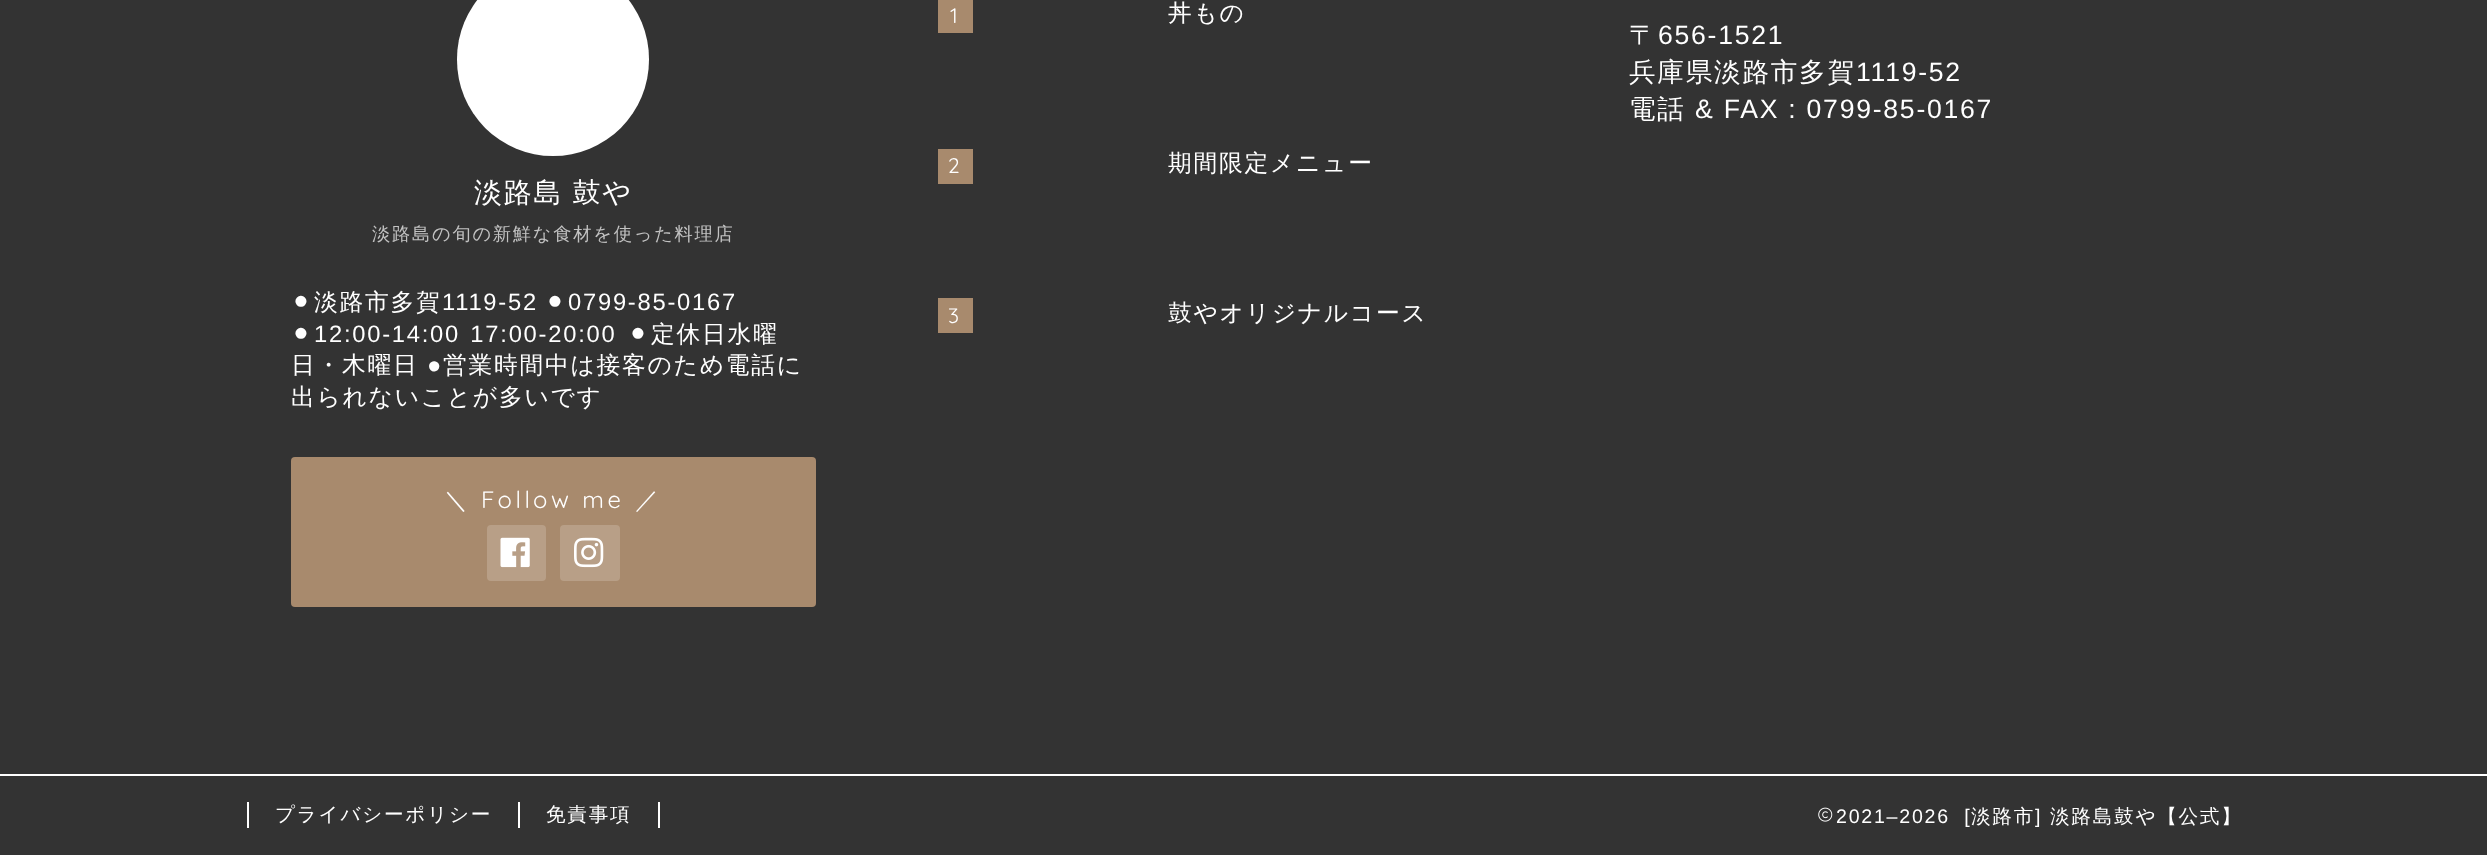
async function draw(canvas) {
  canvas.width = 2487
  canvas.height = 855
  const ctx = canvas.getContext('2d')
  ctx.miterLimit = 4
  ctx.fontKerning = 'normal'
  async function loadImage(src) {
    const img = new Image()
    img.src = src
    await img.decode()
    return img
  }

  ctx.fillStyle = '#333'
  ctx.fillRect(0, 0, 2487, 855)
  ctx.fillStyle = '#fff'
  ctx.fillRect(0, 774, 2487, 2)
  ctx.fillStyle = '#a88a6d'
  ctx.fillRect(938, 0, 35, 33)
  ctx.letterSpacing = '3.5px'
  ctx.font = '300 21px Quicksand'
  ctx.fillStyle = '#fff'
  ctx.fillText('1', 950, 23)
  ctx.letterSpacing = '1.75px'
  ctx.font = '500 23.75px WenQuanYi Zen Hei'
  ctx.fillText('丼もの', 1168, 21)
  ctx.fillStyle = '#a88a6d'
  ctx.fillRect(938, 149, 35, 35)
  ctx.letterSpacing = '3.5px'
  ctx.font = '300 21px Quicksand'
  ctx.fillStyle = '#fff'
  ctx.fillText('2', 948, 173)
  ctx.letterSpacing = '1.75px'
  ctx.font = '500 23.75px WenQuanYi Zen Hei'
  ctx.fillText('期間限定メニュー', 1168, 171)
  ctx.fillStyle = '#a88a6d'
  ctx.fillRect(938, 298, 35, 35)
  ctx.letterSpacing = '3.5px'
  ctx.font = '300 21px Quicksand'
  ctx.fillStyle = '#fff'
  ctx.fillText('3', 948, 323)
  ctx.letterSpacing = '1.75px'
  ctx.font = '500 23.75px WenQuanYi Zen Hei'
  ctx.fillText('鼓やオリジナルコース', 1168, 321)
  ctx.font = '500 26.6px WenQuanYi Zen Hei'
  ctx.fillText('〒', 1629, 44)
  ctx.font = '26.6px Liberation Sans'
  ctx.fillText('656-1521', 1658, 44)
  ctx.font = '500 26.6px WenQuanYi Zen Hei'
  ctx.fillText('兵庫県淡路市多賀', 1629, 81)
  ctx.font = '26.6px Liberation Sans'
  ctx.fillText('1119-52', 1856, 81)
  ctx.font = '500 26.6px WenQuanYi Zen Hei'
  ctx.fillText('電話', 1629, 118)
  ctx.font = '26.6px Liberation Sans'
  ctx.fillText('& FAX : 0799-85-0167', 1695, 118)
  ctx.beginPath()
  ctx.roundRect(457, -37, 192, 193, 96)
  ctx.fill()
  ctx.wordSpacing = '-1px'
  ctx.font = '500 28px WenQuanYi Zen Hei'
  ctx.fillText('淡路島 鼓や', 474, 202)
  ctx.wordSpacing = '0px'
  ctx.font = '500 18.25px WenQuanYi Zen Hei'
  ctx.fillStyle = '#c2c2c2'
  ctx.fillText('淡路島の旬の新鮮な食材を使った料理店', 372, 240)
  ctx.font = '23.75px DejaVu Sans'
  ctx.fillStyle = '#fff'
  ctx.fillText('⚫︎', 291, 310)
  ctx.font = '500 23.75px WenQuanYi Zen Hei'
  ctx.fillText('淡路市多賀', 314, 310)
  ctx.font = '23.75px Liberation Sans'
  ctx.fillText('1119-52', 442, 310)
  ctx.font = '23.75px DejaVu Sans'
  ctx.fillText('⚫︎', 545, 310)
  ctx.font = '23.75px Liberation Sans'
  ctx.fillText('0799-85-0167', 568, 310)
  ctx.font = '23.75px DejaVu Sans'
  ctx.fillText('⚫︎', 291, 342)
  ctx.wordSpacing = '2px'
  ctx.font = '23.75px Liberation Sans'
  ctx.fillText('12:00-14:00 17:00-20:00', 314, 342)
  ctx.wordSpacing = '0px'
  ctx.font = '23.75px DejaVu Sans'
  ctx.fillText('⚫︎', 628, 342)
  ctx.font = '500 23.75px WenQuanYi Zen Hei'
  ctx.fillText('定休日水曜', 651, 342)
  ctx.fillText('日・木曜日', 291, 373)
  ctx.font = '23.75px Liberation Sans'
  ctx.fillText('●', 427, 373)
  ctx.font = '500 23.75px WenQuanYi Zen Hei'
  ctx.fillText('営業時間中は接客のため電話に', 443, 373)
  ctx.fillText('出られないことが多いです', 291, 405)
  ctx.fillStyle = '#a88a6d'
  ctx.beginPath()
  ctx.roundRect(291, 457, 525, 150, 4)
  ctx.fill()
  ctx.letterSpacing = '3.5px'
  ctx.fillStyle = '#fff'
  ctx.fillText('＼', 444, 508)
  ctx.font = '300 23.75px Quicksand'
  ctx.fillText('Follow me', 481, 508)
  ctx.font = '500 23.75px WenQuanYi Zen Hei'
  ctx.fillText('／', 635, 508)
  ctx.fillStyle = '#b89f87'
  ctx.beginPath()
  ctx.roundRect(487, 525, 59, 56, 4)
  ctx.fill()
  ctx.drawImage(await loadImage('image0.png'), 500, 537, 30, 31)
  ctx.beginPath()
  ctx.roundRect(560, 525, 60, 56, 4)
  ctx.fill()
  ctx.drawImage(await loadImage('image1.png'), 574, 537, 30, 31)
  ctx.fillStyle = '#fff'
  ctx.fillRect(518, 802, 2, 26)
  ctx.fillRect(247, 802, 2, 26)
  ctx.letterSpacing = '1.75px'
  ctx.font = '500 19.6px WenQuanYi Zen Hei'
  ctx.fillText('プライバシーポリシー', 275, 821)
  ctx.fillRect(658, 802, 2, 26)
  ctx.fillText('免責事項', 546, 821)
  ctx.drawImage(await loadImage('image2.png'), 1818, 807, 15, 15)
  ctx.font = '19.6px Liberation Sans'
  ctx.fillText('2021–2026  [', 1836, 823)
  ctx.font = '500 19.6px WenQuanYi Zen Hei'
  ctx.fillText('淡路市', 1971, 823)
  ctx.font = '19.6px Liberation Sans'
  ctx.fillText(']', 2035, 823)
  ctx.font = '500 19.6px WenQuanYi Zen Hei'
  ctx.fillText('淡路島鼓や【公式】', 2050, 823)
}

draw(document.querySelector('canvas'))
